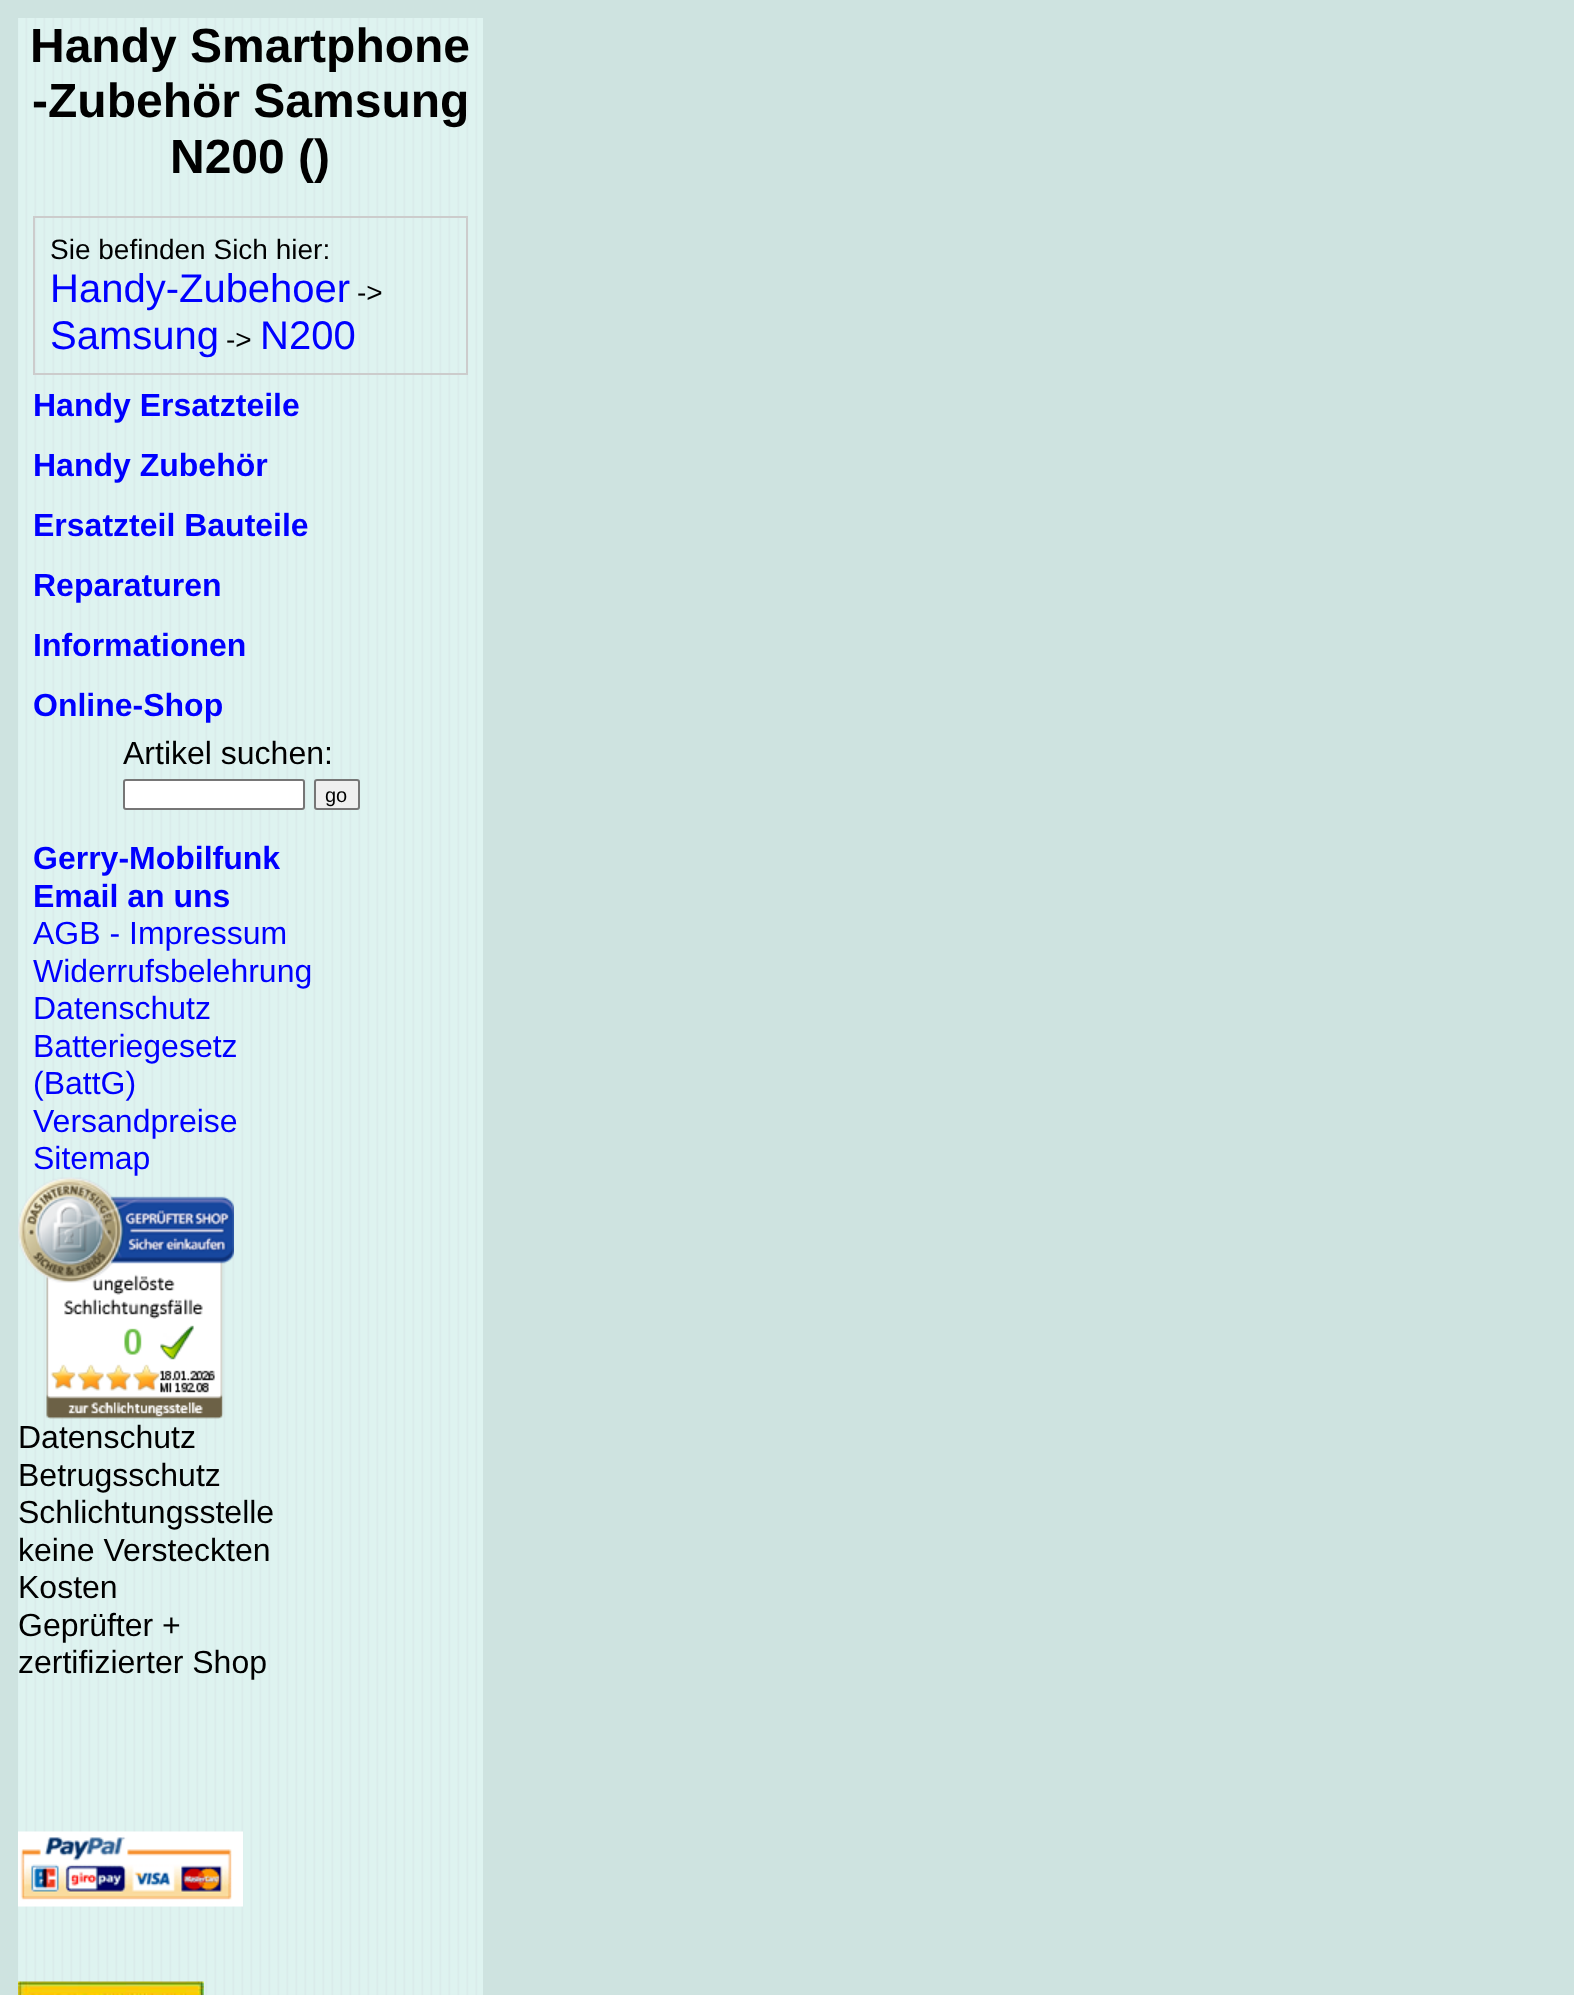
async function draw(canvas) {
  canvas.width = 1574
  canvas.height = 1995
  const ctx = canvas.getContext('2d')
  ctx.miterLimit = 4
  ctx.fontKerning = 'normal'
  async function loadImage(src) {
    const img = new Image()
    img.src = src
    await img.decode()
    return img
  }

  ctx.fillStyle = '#cee3e0'
  ctx.fillRect(0, 0, 1574, 1995)
  ctx.drawImage(await loadImage('image0.png'), 18, 18, 465, 1977)
  ctx.font = 'bold 48px Liberation Sans'
  ctx.fillStyle = '#000'
  ctx.fillText('Handy Smartphone', 30, 62)
  ctx.fillText('-Zubehör Samsung', 32, 117)
  ctx.fillText('N200 ()', 170, 173)
  ctx.strokeStyle = '#ccc'
  ctx.lineWidth = 2
  ctx.strokeRect(34, 217, 433, 157)
  ctx.font = '28px Liberation Sans'
  ctx.fillText('Sie befinden Sich hier:', 50, 259)
  ctx.font = '40px Liberation Sans'
  ctx.fillStyle = '#00f'
  ctx.fillText('Handy-Zubehoer', 50, 302)
  ctx.font = '28px Liberation Sans'
  ctx.fillStyle = '#000'
  ctx.fillText('->', 357, 302)
  ctx.font = '40px Liberation Sans'
  ctx.fillStyle = '#00f'
  ctx.fillText('Samsung', 50, 349)
  ctx.font = '28px Liberation Sans'
  ctx.fillStyle = '#000'
  ctx.fillText('->', 226, 349)
  ctx.font = '40px Liberation Sans'
  ctx.fillStyle = '#00f'
  ctx.fillText('N200', 260, 349)
  ctx.font = 'bold 32px Liberation Sans'
  ctx.fillText('Handy Ersatzteile', 33, 416)
  ctx.fillText('Handy Zubehör', 33, 476)
  ctx.fillText('Ersatzteil Bauteile', 33, 536)
  ctx.fillText('Reparaturen', 33, 596)
  ctx.fillText('Informationen', 33, 656)
  ctx.fillText('Online-Shop', 33, 716)
  ctx.font = '32px Liberation Sans'
  ctx.fillStyle = '#000'
  ctx.fillText('Artikel suchen:', 123, 764)
  ctx.fillStyle = '#fff'
  ctx.beginPath()
  ctx.roundRect(124, 780, 180, 29, 2)
  ctx.fill()
  ctx.strokeStyle = '#767676'
  ctx.stroke()
  ctx.fillStyle = '#efefef'
  ctx.beginPath()
  ctx.roundRect(315, 780, 44, 29, 2)
  ctx.fill()
  ctx.stroke()
  ctx.font = '20px Liberation Sans'
  ctx.fillStyle = '#000'
  ctx.fillText('go', 325, 802)
  ctx.font = 'bold 32px Liberation Sans'
  ctx.fillStyle = '#00f'
  ctx.fillText('Gerry-Mobilfunk', 33, 869)
  ctx.fillText('Email an uns', 33, 907)
  ctx.font = '32px Liberation Sans'
  ctx.fillText('AGB - Impressum', 33, 944)
  ctx.fillText('Widerrufsbelehrung', 33, 982)
  ctx.fillText('Datenschutz', 33, 1019)
  ctx.fillText('Batteriegesetz', 33, 1057)
  ctx.fillText('(BattG)', 33, 1094)
  ctx.fillText('Versandpreise', 33, 1132)
  ctx.fillText('Sitemap', 33, 1169)
  ctx.drawImage(await loadImage('image1.png'), 18, 1177, 216, 242)
  ctx.fillStyle = '#000'
  ctx.fillText('Datenschutz', 18, 1448)
  ctx.fillText('Betrugsschutz', 18, 1486)
  ctx.fillText('Schlichtungsstelle', 18, 1523)
  ctx.fillText('keine Versteckten', 18, 1561)
  ctx.fillText('Kosten', 18, 1598)
  ctx.fillText('Geprüfter +', 18, 1636)
  ctx.fillText('zertifizierter Shop', 18, 1673)
  ctx.drawImage(await loadImage('image2.png'), 18, 1831, 225, 76)
  ctx.drawImage(await loadImage('image3.png'), 18, 1981, 186, 14)
}

draw(document.querySelector('canvas'))
